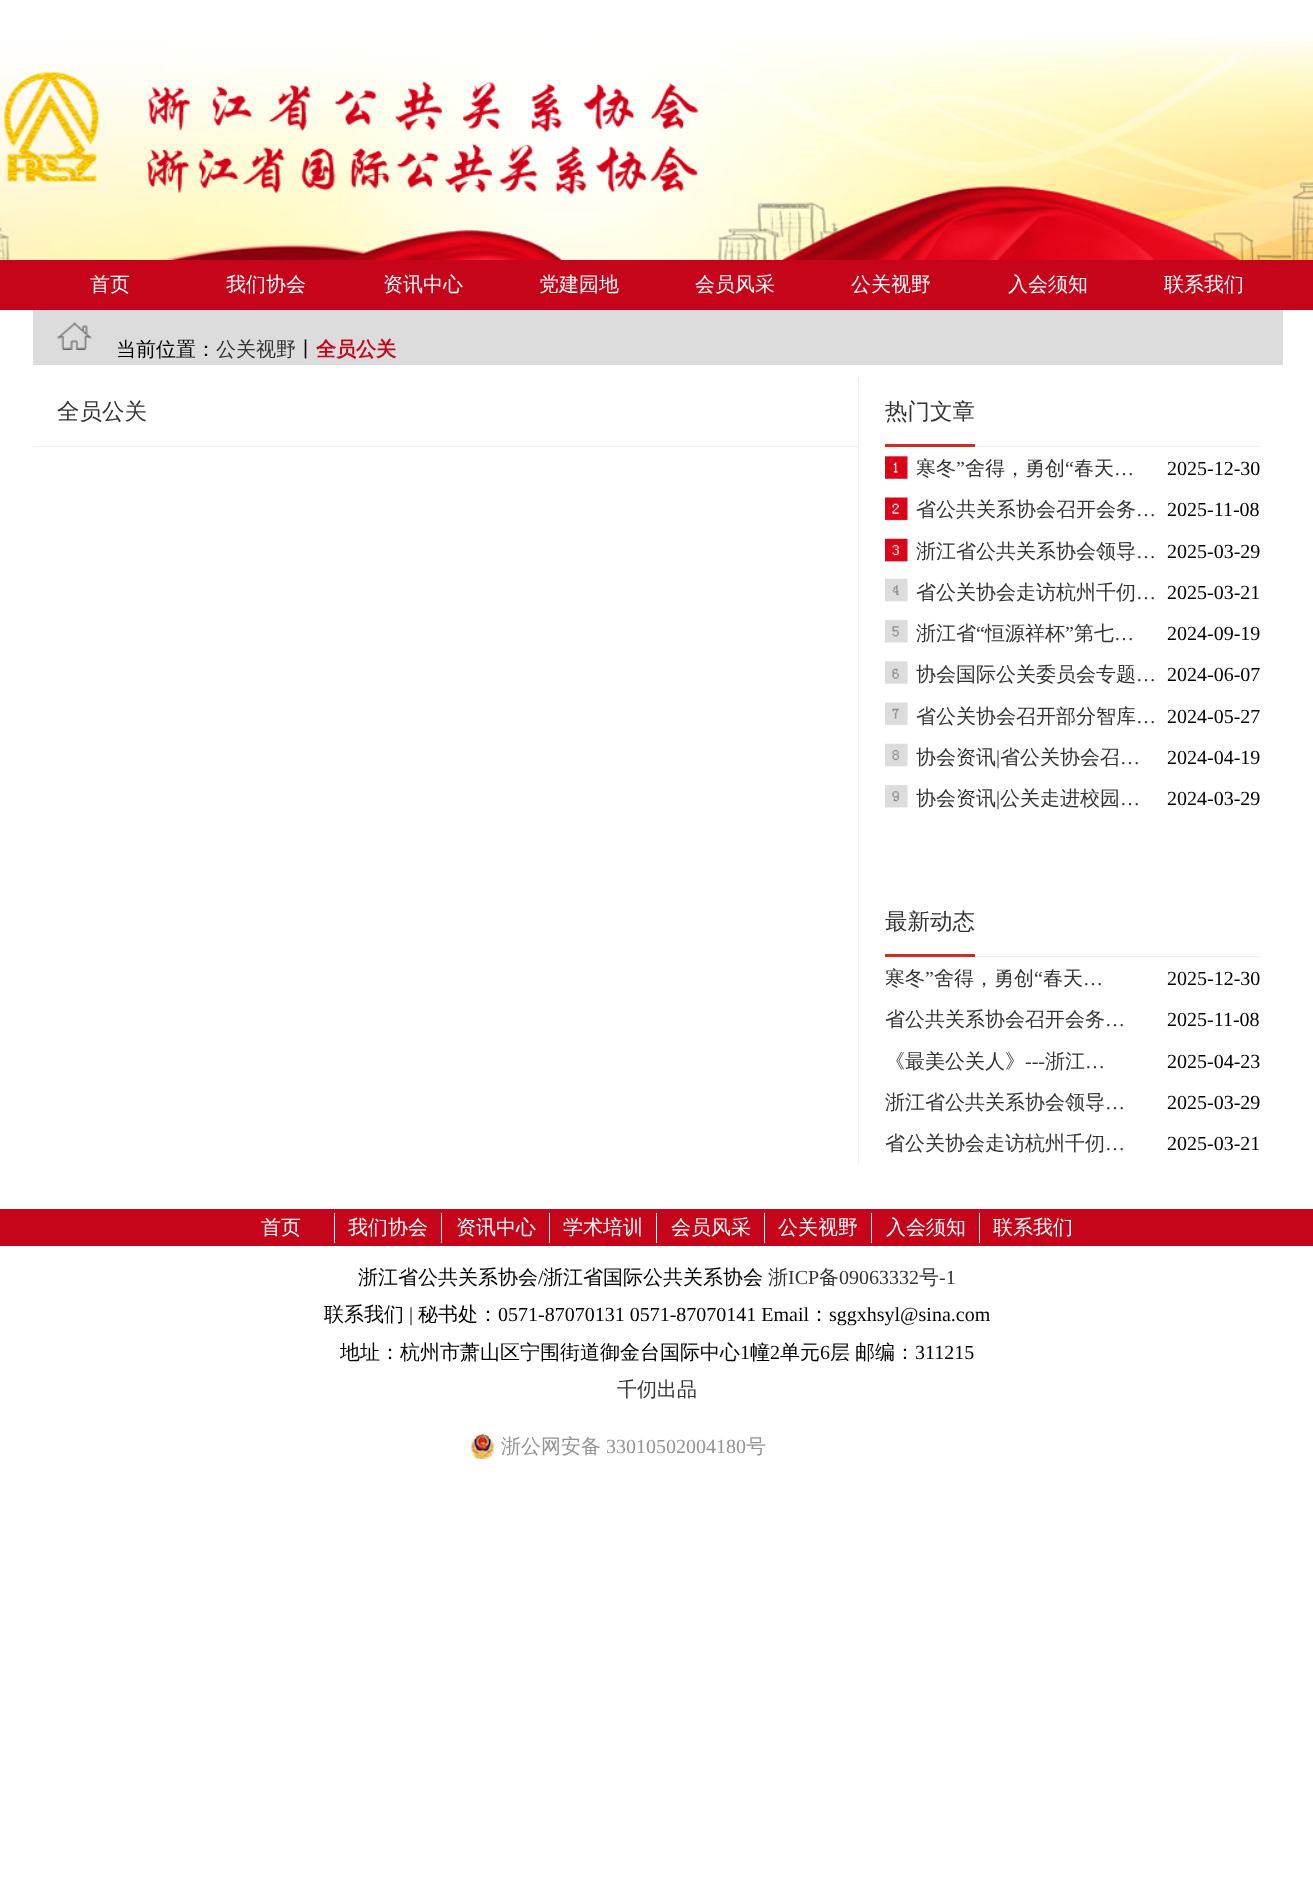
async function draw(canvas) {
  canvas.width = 1313
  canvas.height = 1887
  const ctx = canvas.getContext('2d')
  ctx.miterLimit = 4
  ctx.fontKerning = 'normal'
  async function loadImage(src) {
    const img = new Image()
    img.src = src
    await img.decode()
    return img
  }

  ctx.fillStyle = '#fff'
  ctx.fillRect(0, 0, 1313, 1887)
  ctx.drawImage(await loadImage('image0.png'), 0, 36, 1313, 224)
  ctx.fillStyle = '#c6051a'
  ctx.fillRect(0, 260, 1313, 50)
  ctx.font = '500 20px WenQuanYi Zen Hei'
  ctx.fillStyle = '#fff'
  ctx.fillText('首页', 90, 291)
  ctx.fillText('我们协会', 226, 291)
  ctx.fillText('资讯中心', 383, 291)
  ctx.fillText('党建园地', 539, 291)
  ctx.fillText('会员风采', 695, 291)
  ctx.fillText('公关视野', 851, 291)
  ctx.fillText('入会须知', 1008, 291)
  ctx.fillText('联系我们', 1164, 291)
  ctx.fillStyle = '#dcdcdc'
  ctx.fillRect(33, 310, 1250, 55)
  ctx.drawImage(await loadImage('image1.png'), 57, 322, 35, 28)
  ctx.fillStyle = '#000'
  ctx.fillText('当前位置：', 116, 356)
  ctx.fillStyle = '#333'
  ctx.fillText('公关视野', 216, 356)
  ctx.fillStyle = '#000'
  ctx.fillText('丨', 296, 356)
  ctx.font = 'bold 20px WenQuanYi Zen Hei'
  ctx.fillStyle = '#c50519'
  ctx.fillText('全员公关', 316, 356)
  ctx.fillStyle = '#eee'
  ctx.fillRect(858, 378, 1, 787)
  ctx.fillRect(33, 446, 825, 1)
  ctx.font = '500 22.5px WenQuanYi Zen Hei'
  ctx.fillStyle = '#333'
  ctx.fillText('全员公关', 57, 419)
  ctx.fillStyle = '#eee'
  ctx.fillRect(975, 446, 285, 1)
  ctx.fillStyle = '#333'
  ctx.fillText('热门文章', 885, 419)
  ctx.fillStyle = '#cf2d20'
  ctx.fillRect(885, 444, 90, 3)
  ctx.drawImage(await loadImage('image2.png'), 885, 456, 23, 352)
  ctx.font = '500 20px WenQuanYi Zen Hei'
  ctx.fillStyle = '#333'
  ctx.fillText('寒冬', 916, 475)
  ctx.font = '20px Liberation Serif'
  ctx.fillText('”', 956, 475)
  ctx.font = '500 20px WenQuanYi Zen Hei'
  ctx.fillText('舍得，勇创', 965, 475)
  ctx.font = '20px Liberation Serif'
  ctx.fillText('“', 1065, 475)
  ctx.font = '500 20px WenQuanYi Zen Hei'
  ctx.fillText('春天', 1074, 475)
  ctx.font = '20px Liberation Serif'
  ctx.fillText('…', 1114, 475)
  ctx.fillStyle = '#000'
  ctx.fillText('2025-12-30', 1167, 475)
  ctx.font = '500 20px WenQuanYi Zen Hei'
  ctx.fillStyle = '#333'
  ctx.fillText('省公共关系协会召开会务', 916, 516)
  ctx.font = '20px Liberation Serif'
  ctx.fillText('…', 1136, 516)
  ctx.fillStyle = '#000'
  ctx.fillText('2025-11-08', 1167, 516)
  ctx.font = '500 20px WenQuanYi Zen Hei'
  ctx.fillStyle = '#333'
  ctx.fillText('浙江省公共关系协会领导', 916, 558)
  ctx.font = '20px Liberation Serif'
  ctx.fillText('…', 1136, 558)
  ctx.fillStyle = '#000'
  ctx.fillText('2025-03-29', 1167, 558)
  ctx.font = '500 20px WenQuanYi Zen Hei'
  ctx.fillStyle = '#333'
  ctx.fillText('省公关协会走访杭州千仞', 916, 599)
  ctx.font = '20px Liberation Serif'
  ctx.fillText('…', 1136, 599)
  ctx.fillStyle = '#000'
  ctx.fillText('2025-03-21', 1167, 599)
  ctx.font = '500 20px WenQuanYi Zen Hei'
  ctx.fillStyle = '#333'
  ctx.fillText('浙江省', 916, 640)
  ctx.font = '20px Liberation Serif'
  ctx.fillText('“', 976, 640)
  ctx.font = '500 20px WenQuanYi Zen Hei'
  ctx.fillText('恒源祥杯', 985, 640)
  ctx.font = '20px Liberation Serif'
  ctx.fillText('”', 1065, 640)
  ctx.font = '500 20px WenQuanYi Zen Hei'
  ctx.fillText('第七', 1074, 640)
  ctx.font = '20px Liberation Serif'
  ctx.fillText('…', 1114, 640)
  ctx.fillStyle = '#000'
  ctx.fillText('2024-09-19', 1167, 640)
  ctx.font = '500 20px WenQuanYi Zen Hei'
  ctx.fillStyle = '#333'
  ctx.fillText('协会国际公关委员会专题', 916, 681)
  ctx.font = '20px Liberation Serif'
  ctx.fillText('…', 1136, 681)
  ctx.fillStyle = '#000'
  ctx.fillText('2024-06-07', 1167, 681)
  ctx.font = '500 20px WenQuanYi Zen Hei'
  ctx.fillStyle = '#333'
  ctx.fillText('省公关协会召开部分智库', 916, 723)
  ctx.font = '20px Liberation Serif'
  ctx.fillText('…', 1136, 723)
  ctx.fillStyle = '#000'
  ctx.fillText('2024-05-27', 1167, 723)
  ctx.font = '500 20px WenQuanYi Zen Hei'
  ctx.fillStyle = '#333'
  ctx.fillText('协会资讯', 916, 764)
  ctx.font = '20px Liberation Serif'
  ctx.fillText('|', 996, 764)
  ctx.font = '500 20px WenQuanYi Zen Hei'
  ctx.fillText('省公关协会召', 1000, 764)
  ctx.font = '20px Liberation Serif'
  ctx.fillText('…', 1120, 764)
  ctx.fillStyle = '#000'
  ctx.fillText('2024-04-19', 1167, 764)
  ctx.font = '500 20px WenQuanYi Zen Hei'
  ctx.fillStyle = '#333'
  ctx.fillText('协会资讯', 916, 805)
  ctx.font = '20px Liberation Serif'
  ctx.fillText('|', 996, 805)
  ctx.font = '500 20px WenQuanYi Zen Hei'
  ctx.fillText('公关走进校园', 1000, 805)
  ctx.font = '20px Liberation Serif'
  ctx.fillText('…', 1120, 805)
  ctx.fillStyle = '#000'
  ctx.fillText('2024-03-29', 1167, 805)
  ctx.fillStyle = '#eee'
  ctx.fillRect(975, 956, 285, 1)
  ctx.font = '500 22.5px WenQuanYi Zen Hei'
  ctx.fillStyle = '#333'
  ctx.fillText('最新动态', 885, 929)
  ctx.fillStyle = '#cf2d20'
  ctx.fillRect(885, 954, 90, 3)
  ctx.font = '500 20px WenQuanYi Zen Hei'
  ctx.fillStyle = '#333'
  ctx.fillText('寒冬', 885, 985)
  ctx.font = '20px Liberation Serif'
  ctx.fillText('”', 925, 985)
  ctx.font = '500 20px WenQuanYi Zen Hei'
  ctx.fillText('舍得，勇创', 934, 985)
  ctx.font = '20px Liberation Serif'
  ctx.fillText('“', 1034, 985)
  ctx.font = '500 20px WenQuanYi Zen Hei'
  ctx.fillText('春天', 1043, 985)
  ctx.font = '20px Liberation Serif'
  ctx.fillText('…', 1083, 985)
  ctx.fillStyle = '#000'
  ctx.fillText('2025-12-30', 1167, 985)
  ctx.font = '500 20px WenQuanYi Zen Hei'
  ctx.fillStyle = '#333'
  ctx.fillText('省公共关系协会召开会务', 885, 1026)
  ctx.font = '20px Liberation Serif'
  ctx.fillText('…', 1105, 1026)
  ctx.fillStyle = '#000'
  ctx.fillText('2025-11-08', 1167, 1026)
  ctx.font = '500 20px WenQuanYi Zen Hei'
  ctx.fillStyle = '#333'
  ctx.fillText('《最美公关人》', 885, 1068)
  ctx.font = '20px Liberation Serif'
  ctx.fillText('---', 1025, 1068)
  ctx.font = '500 20px WenQuanYi Zen Hei'
  ctx.fillText('浙江', 1045, 1068)
  ctx.font = '20px Liberation Serif'
  ctx.fillText('…', 1085, 1068)
  ctx.fillStyle = '#000'
  ctx.fillText('2025-04-23', 1167, 1068)
  ctx.font = '500 20px WenQuanYi Zen Hei'
  ctx.fillStyle = '#333'
  ctx.fillText('浙江省公共关系协会领导', 885, 1109)
  ctx.font = '20px Liberation Serif'
  ctx.fillText('…', 1105, 1109)
  ctx.fillStyle = '#000'
  ctx.fillText('2025-03-29', 1167, 1109)
  ctx.font = '500 20px WenQuanYi Zen Hei'
  ctx.fillStyle = '#333'
  ctx.fillText('省公关协会走访杭州千仞', 885, 1150)
  ctx.font = '20px Liberation Serif'
  ctx.fillText('…', 1105, 1150)
  ctx.fillStyle = '#000'
  ctx.fillText('2025-03-21', 1167, 1150)
  ctx.fillStyle = '#c6051a'
  ctx.fillRect(0, 1209, 1313, 37)
  ctx.fillStyle = '#fff'
  ctx.fillRect(334, 1213, 1, 30)
  ctx.font = '500 20px WenQuanYi Zen Hei'
  ctx.fillText('首页', 261, 1234)
  ctx.fillRect(441, 1213, 1, 30)
  ctx.fillText('我们协会', 348, 1234)
  ctx.fillRect(549, 1213, 1, 30)
  ctx.fillText('资讯中心', 456, 1234)
  ctx.fillRect(656, 1213, 1, 30)
  ctx.fillText('学术培训', 563, 1234)
  ctx.fillRect(764, 1213, 1, 30)
  ctx.fillText('会员风采', 671, 1234)
  ctx.fillRect(871, 1213, 1, 30)
  ctx.fillText('公关视野', 778, 1234)
  ctx.fillRect(979, 1213, 1, 30)
  ctx.fillText('入会须知', 886, 1234)
  ctx.fillText('联系我们', 993, 1234)
  ctx.fillStyle = '#000'
  ctx.fillText('浙江省公共关系协会', 358, 1284)
  ctx.font = '20px Liberation Serif'
  ctx.fillText('/', 538, 1284)
  ctx.font = '500 20px WenQuanYi Zen Hei'
  ctx.fillText('浙江省国际公共关系协会', 543, 1284)
  ctx.fillStyle = '#333'
  ctx.fillText('浙', 768, 1284)
  ctx.font = '20px Liberation Serif'
  ctx.fillText('ICP', 788, 1284)
  ctx.font = '500 20px WenQuanYi Zen Hei'
  ctx.fillText('备', 819, 1284)
  ctx.font = '20px Liberation Serif'
  ctx.fillText('09063332', 839, 1284)
  ctx.font = '500 20px WenQuanYi Zen Hei'
  ctx.fillText('号', 919, 1284)
  ctx.font = '20px Liberation Serif'
  ctx.fillText('-1', 939, 1284)
  ctx.font = '500 20px WenQuanYi Zen Hei'
  ctx.fillStyle = '#000'
  ctx.fillText('联系我们', 324, 1321)
  ctx.font = '20px Liberation Serif'
  ctx.fillText('|', 409, 1321)
  ctx.font = '500 20px WenQuanYi Zen Hei'
  ctx.fillText('秘书处：', 418, 1321)
  ctx.font = '20px Liberation Serif'
  ctx.fillText('0571-87070131 0571-87070141 Email', 498, 1321)
  ctx.font = '500 20px WenQuanYi Zen Hei'
  ctx.fillText('：', 809, 1321)
  ctx.font = '20px Liberation Serif'
  ctx.fillText('sggxhsyl@sina.com', 829, 1321)
  ctx.font = '500 20px WenQuanYi Zen Hei'
  ctx.fillText('地址：杭州市萧山区宁围街道御金台国际中心', 340, 1359)
  ctx.font = '20px Liberation Serif'
  ctx.fillText('1', 740, 1359)
  ctx.font = '500 20px WenQuanYi Zen Hei'
  ctx.fillText('幢', 750, 1359)
  ctx.font = '20px Liberation Serif'
  ctx.fillText('2', 770, 1359)
  ctx.font = '500 20px WenQuanYi Zen Hei'
  ctx.fillText('单元', 780, 1359)
  ctx.font = '20px Liberation Serif'
  ctx.fillText('6', 820, 1359)
  ctx.wordSpacing = '-1px'
  ctx.font = '500 20px WenQuanYi Zen Hei'
  ctx.fillText('层 邮编：', 830, 1359)
  ctx.wordSpacing = '0px'
  ctx.font = '20px Liberation Serif'
  ctx.fillText('311215', 915, 1359)
  ctx.font = '500 20px WenQuanYi Zen Hei'
  ctx.fillStyle = '#333'
  ctx.fillText('千仞出品', 617, 1396)
  ctx.drawImage(await loadImage('image3.png'), 471, 1433, 23, 26)
  ctx.fillStyle = '#939393'
  ctx.fillText('浙公网安备', 501, 1453)
  ctx.font = '20px Liberation Serif'
  ctx.fillText('33010502004180', 606, 1453)
  ctx.font = '500 20px WenQuanYi Zen Hei'
  ctx.fillText('号', 746, 1453)
}

draw(document.querySelector('canvas'))
